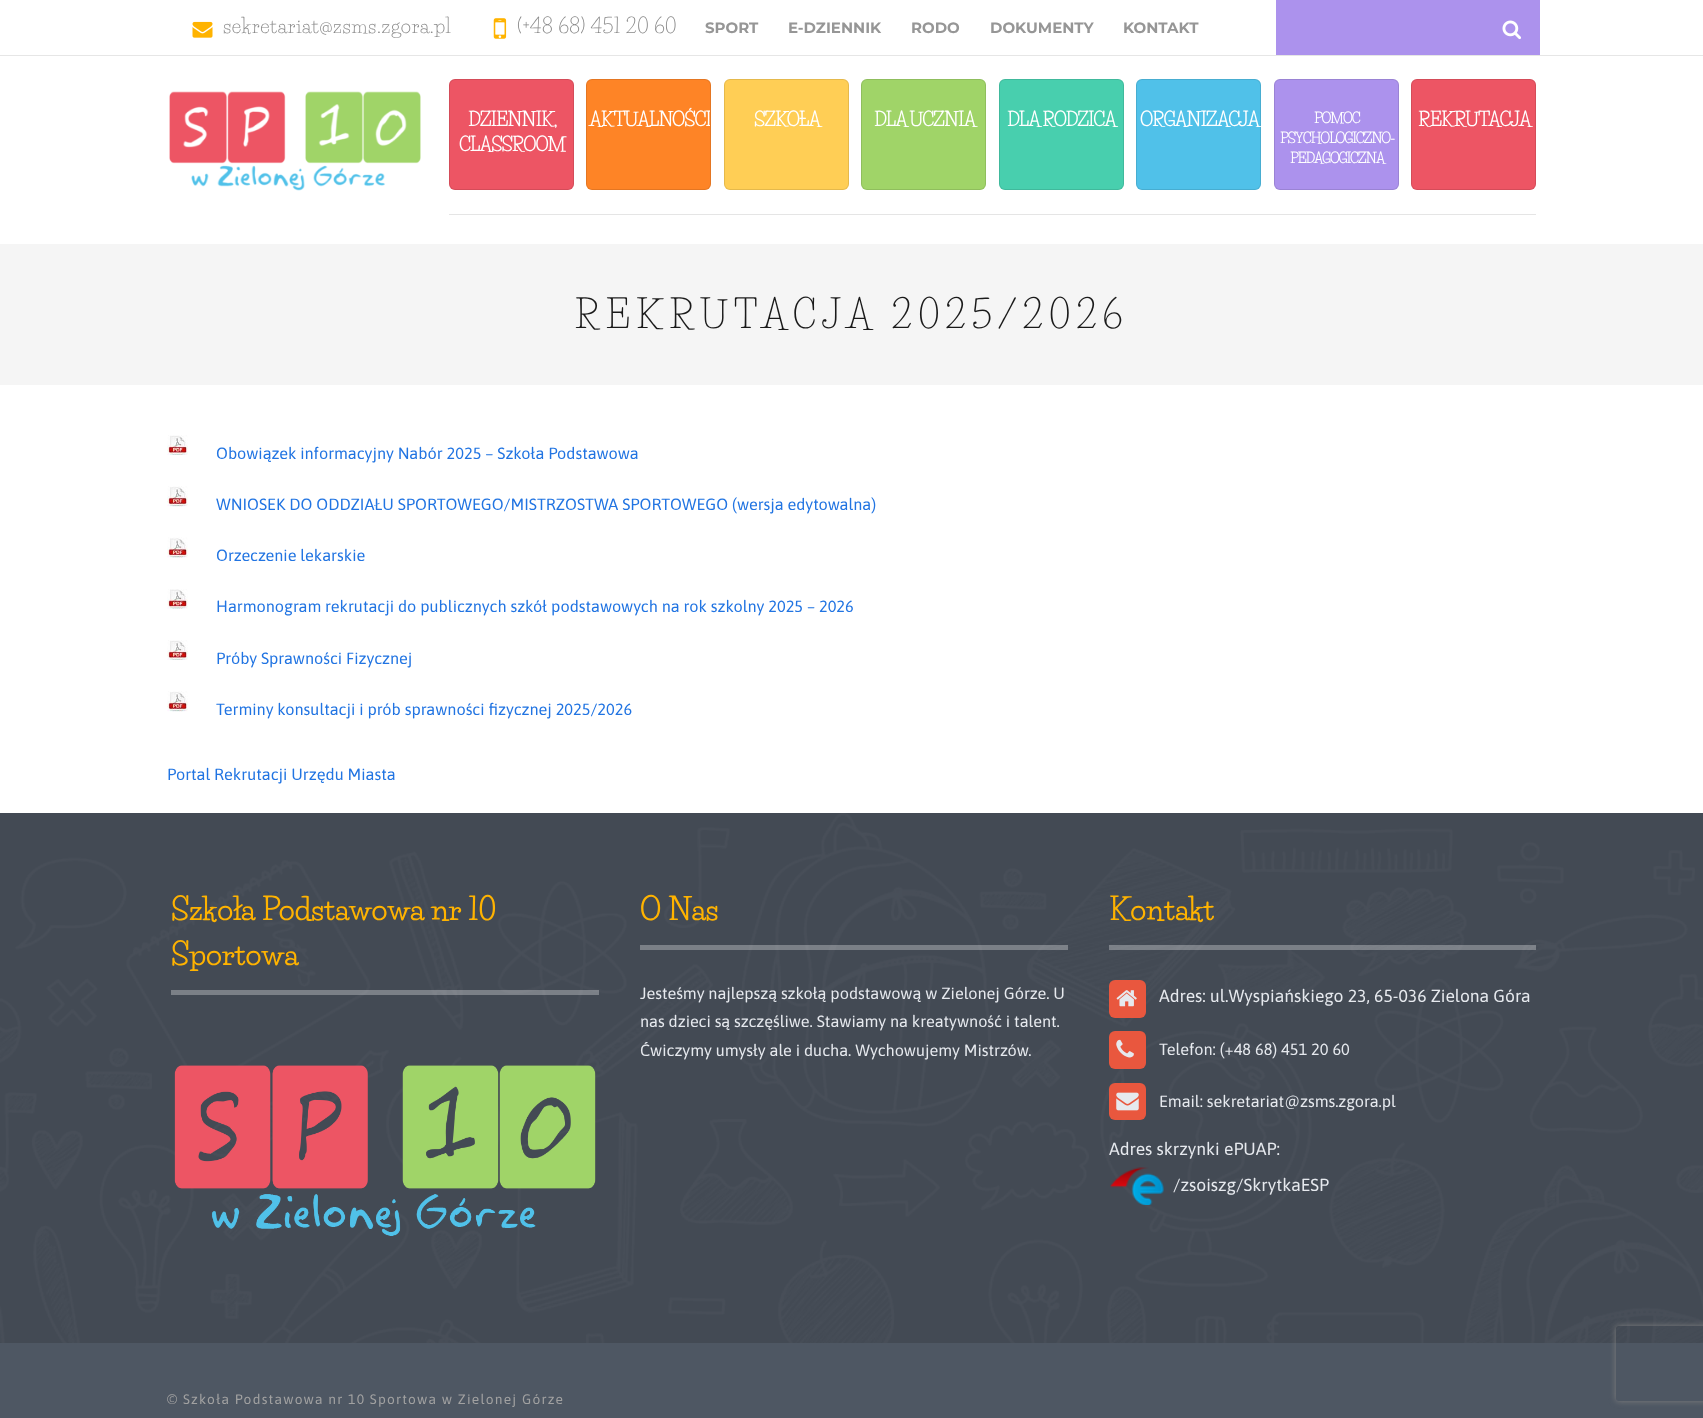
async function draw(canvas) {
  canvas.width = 1703
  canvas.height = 1418
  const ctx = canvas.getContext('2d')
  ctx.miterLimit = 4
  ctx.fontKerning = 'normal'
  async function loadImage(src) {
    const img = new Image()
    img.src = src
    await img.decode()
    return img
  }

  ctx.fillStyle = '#fff'
  ctx.fillRect(0, 0, 1703, 1418)
  ctx.fillStyle = '#e6e6e6'
  ctx.fillRect(0, 55, 1703, 1)
  ctx.drawImage(await loadImage('image0.png'), 192, 21, 21, 17)
  ctx.letterSpacing = '0.6px'
  ctx.font = '20px Life Savers'
  ctx.fillStyle = '#898989'
  ctx.fillText('sekretariat@zsms.zgora.pl', 223, 33)
  ctx.drawImage(await loadImage('image1.png'), 493, 18, 14, 21)
  ctx.fillText('(+48 68) 451 20 60', 517, 33)
  ctx.letterSpacing = '0px'
  ctx.font = 'bold 15px Montserrat'
  ctx.fillStyle = '#969696'
  ctx.fillText('SPORT', 705, 33)
  ctx.fillText('E-DZIENNIK', 788, 33)
  ctx.fillText('RODO', 911, 33)
  ctx.fillText('DOKUMENTY', 990, 33)
  ctx.fillText('KONTAKT', 1123, 33)
  ctx.fillStyle = '#ac92ed'
  ctx.fillRect(1276, 0, 264, 55)
  ctx.drawImage(await loadImage('image2.png'), 1502, 20, 19, 20)
  ctx.drawImage(await loadImage('image3.png'), 169, 91, 252, 100)
  ctx.fillStyle = '#ed5564'
  ctx.beginPath()
  ctx.roundRect(449, 79, 125, 111, 6)
  ctx.fill()
  ctx.beginPath()
  ctx.roundRect(449.5, 79.5, 124, 110, 5.5)
  ctx.strokeStyle = '#0000001a'
  ctx.stroke()
  ctx.letterSpacing = '-1.25px'
  ctx.font = 'bold 18.75px Life Savers'
  ctx.fillStyle = '#fff'
  ctx.fillText('DZIENNIK,', 468, 126)
  ctx.fillText('CLASSROOM', 459, 151)
  ctx.fillStyle = '#fe8426'
  ctx.beginPath()
  ctx.roundRect(586, 79, 125, 111, 6)
  ctx.fill()
  ctx.beginPath()
  ctx.roundRect(586.5, 79.5, 124, 110, 5.5)
  ctx.stroke()
  ctx.save()
  ctx.beginPath()
  ctx.roundRect(588, 80, 122, 109, 5)
  ctx.clip()
  ctx.fillStyle = '#fff'
  ctx.fillText('AKTUALNOŚCI', 589, 126)
  ctx.restore()
  ctx.fillStyle = '#ffce55'
  ctx.beginPath()
  ctx.roundRect(724, 79, 125, 111, 6)
  ctx.fill()
  ctx.beginPath()
  ctx.roundRect(724.5, 79.5, 124, 110, 5.5)
  ctx.stroke()
  ctx.fillStyle = '#fff'
  ctx.fillText('SZKOŁA', 754, 126)
  ctx.fillStyle = '#a0d468'
  ctx.beginPath()
  ctx.roundRect(861, 79, 125, 111, 6)
  ctx.fill()
  ctx.beginPath()
  ctx.roundRect(861.5, 79.5, 124, 110, 5.5)
  ctx.stroke()
  ctx.fillStyle = '#fff'
  ctx.fillText('DLA UCZNIA', 874, 126)
  ctx.fillStyle = '#48cfae'
  ctx.beginPath()
  ctx.roundRect(999, 79, 125, 111, 6)
  ctx.fill()
  ctx.beginPath()
  ctx.roundRect(999.5, 79.5, 124, 110, 5.5)
  ctx.stroke()
  ctx.fillStyle = '#fff'
  ctx.fillText('DLA RODZICA', 1007, 126)
  ctx.fillStyle = '#50c1e9'
  ctx.beginPath()
  ctx.roundRect(1136, 79, 125, 111, 6)
  ctx.fill()
  ctx.beginPath()
  ctx.roundRect(1136.5, 79.5, 124, 110, 5.5)
  ctx.stroke()
  ctx.fillStyle = '#fff'
  ctx.fillText('ORGANIZACJA', 1140, 126)
  ctx.fillStyle = '#ac92ed'
  ctx.beginPath()
  ctx.roundRect(1274, 79, 125, 111, 6)
  ctx.fill()
  ctx.beginPath()
  ctx.roundRect(1274.5, 79.5, 124, 110, 5.5)
  ctx.stroke()
  ctx.font = 'bold 14px Life Savers'
  ctx.fillStyle = '#fff'
  ctx.fillText('POMOC', 1314, 123)
  ctx.fillText('PSYCHOLOGICZNO-', 1280, 143)
  ctx.fillText('PEDAGOGICZNA', 1290, 163)
  ctx.fillStyle = '#ed5564'
  ctx.beginPath()
  ctx.roundRect(1411, 79, 125, 111, 6)
  ctx.fill()
  ctx.beginPath()
  ctx.roundRect(1411.5, 79.5, 124, 110, 5.5)
  ctx.stroke()
  ctx.font = 'bold 18.75px Life Savers'
  ctx.fillStyle = '#fff'
  ctx.fillText('REKRUTACJA', 1418, 126)
  ctx.fillStyle = '#e5e5e5'
  ctx.fillRect(449, 214, 1087, 1)
  ctx.fillStyle = '#f5f5f5'
  ctx.fillRect(0, 244, 1703, 141)
  ctx.letterSpacing = '6.25px'
  ctx.font = '37.5px Life Savers'
  ctx.fillStyle = '#1a1a1a'
  ctx.fillText('REKRUTACJA 2025/2026', 575, 328)
  ctx.drawImage(await loadImage('image4.png'), 167, 435, 21, 20)
  ctx.letterSpacing = '0px'
  ctx.font = '16.25px Asap'
  ctx.fillStyle = '#2174e2'
  ctx.fillText('Obowiązek informacyjny Nabór 2025 – Szkoła Podstawowa', 216, 459)
  ctx.drawImage(await loadImage('image5.png'), 167, 486, 21, 21)
  ctx.fillText('WNIOSEK DO ODDZIAŁU SPORTOWEGO/MISTRZOSTWA SPORTOWEGO (wersja edytowalna)', 216, 510)
  ctx.drawImage(await loadImage('image6.png'), 167, 537, 21, 21)
  ctx.fillText('Orzeczenie lekarskie', 216, 561)
  ctx.drawImage(await loadImage('image7.png'), 167, 589, 21, 20)
  ctx.fillText('Harmonogram rekrutacji do publicznych szkół podstawowych na rok szkolny 2025 – 2026', 216, 612)
  ctx.drawImage(await loadImage('image4.png'), 167, 640, 21, 20)
  ctx.fillText('Próby Sprawności Fizycznej', 216, 664)
  ctx.drawImage(await loadImage('image5.png'), 167, 691, 21, 21)
  ctx.fillText('Terminy konsultacji i prób sprawności fizycznej 2025/2026', 216, 715)
  ctx.fillText('Portal Rekrutacji Urzędu Miasta', 167, 780)
  ctx.fillStyle = '#434a54'
  ctx.fillRect(0, 813, 1703, 530)
  ctx.drawImage(await loadImage('image8.png'), 0, 813, 1703, 530)
  ctx.fillStyle = '#ffffff4d'
  ctx.fillRect(171, 990, 428, 5)
  ctx.font = 'bold 30px Life Savers'
  ctx.fillStyle = '#ffb300'
  ctx.fillText('Szkoła Podstawowa nr 10', 171, 920)
  ctx.fillText('Sportowa', 171, 965)
  ctx.drawImage(await loadImage('image9.png'), 174, 1065, 422, 171)
  ctx.fillStyle = '#ffffff4d'
  ctx.fillRect(640, 945, 428, 5)
  ctx.fillStyle = '#ffb300'
  ctx.fillText('O Nas', 640, 920)
  ctx.font = '16.25px Asap'
  ctx.fillStyle = '#e6e9ee'
  ctx.fillText('Jesteśmy najlepszą szkołą podstawową w Zielonej Górze. U', 640, 999)
  ctx.fillText('nas dzieci są szczęśliwe. Stawiamy na kreatywność i talent.', 640, 1027)
  ctx.fillText('Ćwiczymy umysły ale i ducha. Wychowujemy Mistrzów.', 640, 1056)
  ctx.fillStyle = '#ffffff4d'
  ctx.fillRect(1109, 945, 427, 5)
  ctx.font = 'bold 30px Life Savers'
  ctx.fillStyle = '#ffb300'
  ctx.fillText('Kontakt', 1109, 920)
  ctx.fillStyle = '#e9573e'
  ctx.beginPath()
  ctx.roundRect(1109, 980, 37, 38, 6)
  ctx.fill()
  ctx.drawImage(await loadImage('image10.png'), 1116, 990, 21, 17)
  ctx.font = '17.5px Asap'
  ctx.fillStyle = '#e6e9ee'
  ctx.fillText('Adres: ul.Wyspiańskiego 23, 65-036 Zielona Góra', 1159, 1002)
  ctx.fillStyle = '#e9573e'
  ctx.beginPath()
  ctx.roundRect(1109, 1031, 37, 38, 6)
  ctx.fill()
  ctx.drawImage(await loadImage('image11.png'), 1116, 1039, 18, 19)
  ctx.font = '16.25px Asap'
  ctx.fillStyle = '#e6e9ee'
  ctx.fillText('Telefon: (+48 68) 451 20 60', 1159, 1055)
  ctx.fillStyle = '#e9573e'
  ctx.beginPath()
  ctx.roundRect(1109, 1083, 37, 37, 6)
  ctx.fill()
  ctx.drawImage(await loadImage('image12.png'), 1116, 1092, 23, 19)
  ctx.fillStyle = '#e6e9ee'
  ctx.fillText('Email: sekretariat@zsms.zgora.pl', 1159, 1107)
  ctx.font = '17.5px Asap'
  ctx.fillText('Adres skrzynki ePUAP:', 1109, 1155)
  ctx.drawImage(await loadImage('image13.png'), 1110, 1167, 54, 38)
  ctx.fillText('/zsoiszg/SkrytkaESP', 1173, 1191)
  ctx.fillStyle = '#4e5763'
  ctx.fillRect(0, 1343, 1703, 75)
  ctx.letterSpacing = '1.25px'
  ctx.font = '13.75px Asap'
  ctx.fillStyle = '#a1a1a1'
  ctx.fillText('© Szkoła Podstawowa nr 10 Sportowa w Zielonej Górze', 167, 1404)
  ctx.save()
  ctx.beginPath()
  ctx.moveTo(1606, 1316)
  ctx.lineTo(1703, 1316)
  ctx.lineTo(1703, 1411)
  ctx.lineTo(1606, 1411)
  ctx.closePath()
  ctx.moveTo(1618.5, 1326)
  ctx.lineTo(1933.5, 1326)
  ctx.bezierCurveTo(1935, 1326, 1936, 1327, 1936, 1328.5)
  ctx.lineTo(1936, 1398.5)
  ctx.bezierCurveTo(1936, 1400, 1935, 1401, 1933.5, 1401)
  ctx.lineTo(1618.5, 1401)
  ctx.bezierCurveTo(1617, 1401, 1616, 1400, 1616, 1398.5)
  ctx.lineTo(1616, 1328.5)
  ctx.bezierCurveTo(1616, 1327, 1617, 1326, 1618.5, 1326)
  ctx.closePath()
  ctx.clip('evenodd')
  ctx.fillStyle = '#808080'
  ctx.filter = 'blur(3px)'
  ctx.beginPath()
  ctx.roundRect(1616, 1326, 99, 75, 2.5)
  ctx.fill()
  ctx.filter = 'none'
  ctx.restore()
}

draw(document.querySelector('canvas'))
